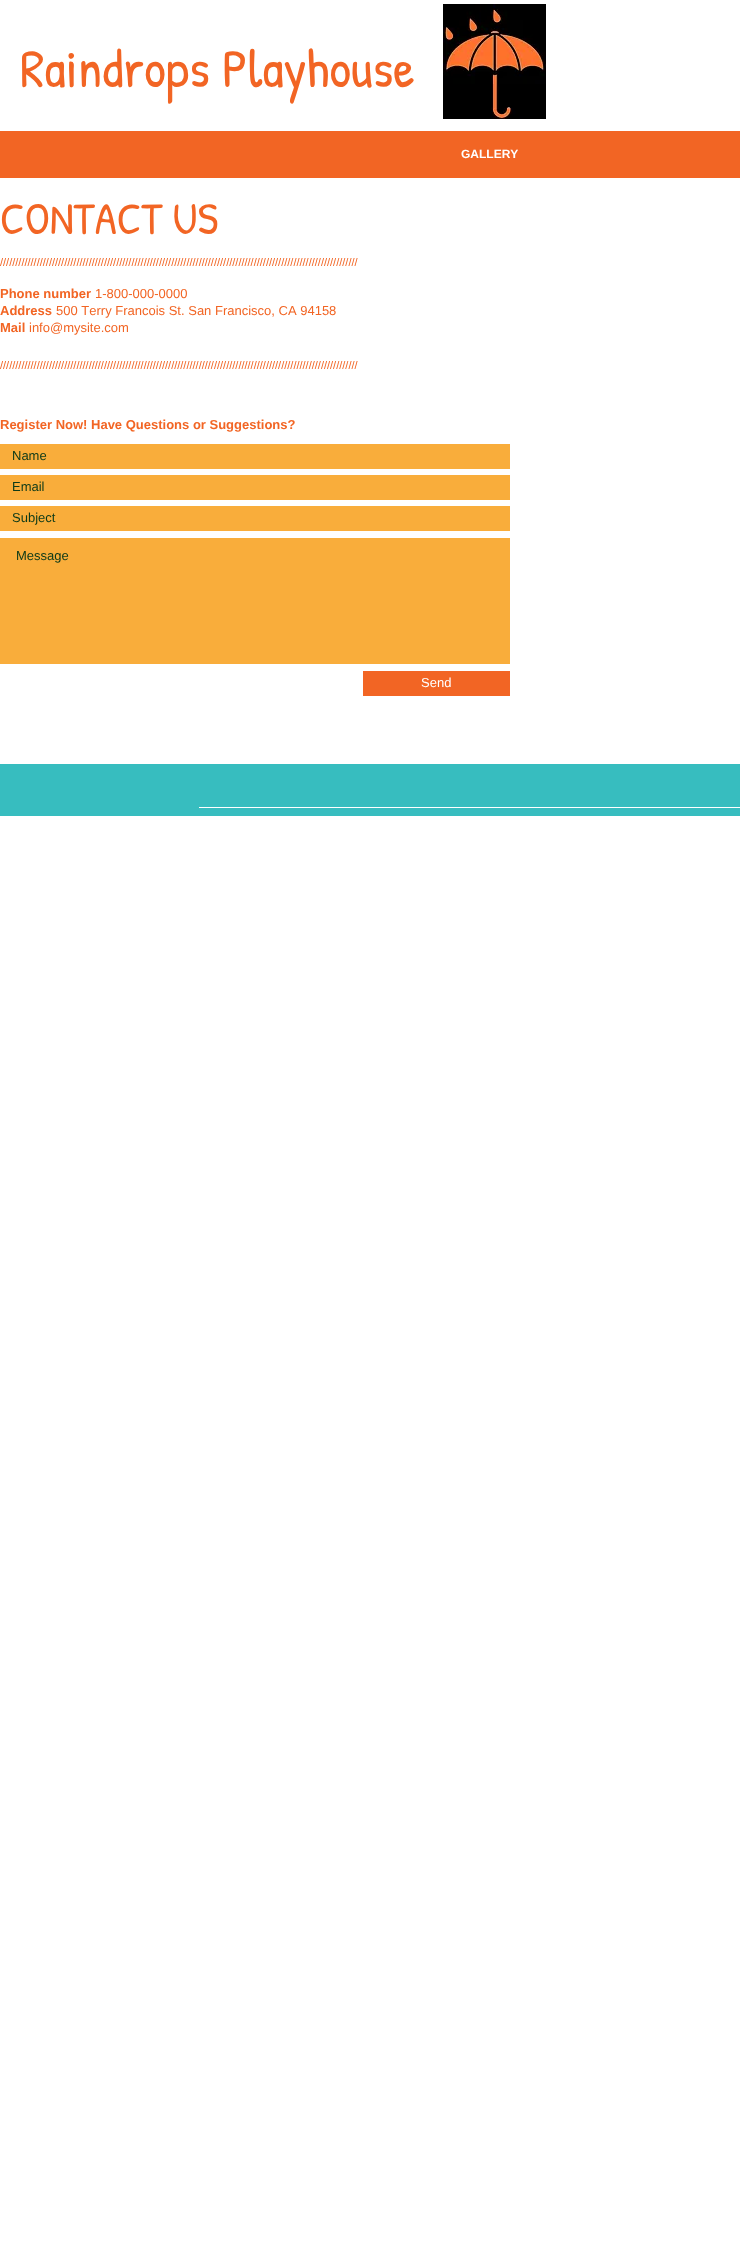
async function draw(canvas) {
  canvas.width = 740
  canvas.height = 2245
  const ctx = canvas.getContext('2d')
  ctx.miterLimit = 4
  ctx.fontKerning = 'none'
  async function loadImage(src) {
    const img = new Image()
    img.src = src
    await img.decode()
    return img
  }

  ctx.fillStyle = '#fff'
  ctx.fillRect(0, 0, 740, 2245)
  ctx.font = '54px Patrick Hand'
  ctx.fillStyle = '#f26524'
  ctx.fillText('Raindrops Playhouse', 20, 87)
  ctx.drawImage(await loadImage('image0.png'), 443, 4, 103, 115)
  ctx.fillRect(0, 131, 740, 47)
  ctx.font = 'bold 12px Liberation Sans'
  ctx.fillStyle = '#fff'
  ctx.fillText('GALLERY', 461, 158)
  ctx.font = '45px Patrick Hand'
  ctx.fillStyle = '#f26524'
  ctx.fillText('CONTACT US', 0, 234)
  ctx.font = '11px Liberation Sans'
  ctx.fillText('/////////////////////////////////////////////////////////////////////////////////////////////////////////////////////', 0, 266)
  ctx.font = 'bold 13px Liberation Sans'
  ctx.fillText('Phone number', 0, 298)
  ctx.font = '13px Liberation Sans'
  ctx.fillText('1-800-000-0000', 95, 298)
  ctx.font = 'bold 13px Liberation Sans'
  ctx.fillText('Address', 0, 315)
  ctx.font = '13px Liberation Sans'
  ctx.fillText('500 Terry Francois St. San Francisco, CA 94158', 56, 315)
  ctx.font = 'bold 13px Liberation Sans'
  ctx.fillText('Mail', 0, 332)
  ctx.font = '13px Liberation Sans'
  ctx.fillText('info@mysite.com', 29, 332)
  ctx.font = '11px Liberation Sans'
  ctx.fillText('/////////////////////////////////////////////////////////////////////////////////////////////////////////////////////', 0, 369)
  ctx.font = 'bold 13px Liberation Sans'
  ctx.fillText('Register Now! Have Questions or Suggestions?', 0, 429)
  ctx.fillStyle = '#f9ad3b'
  ctx.fillRect(0, 444, 510, 25)
  ctx.font = '13px Liberation Sans'
  ctx.fillStyle = '#0d3a18'
  ctx.fillText('Name', 12, 460)
  ctx.fillStyle = '#f9ad3b'
  ctx.fillRect(0, 475, 510, 25)
  ctx.fillStyle = '#0d3a18'
  ctx.fillText('Email', 12, 491)
  ctx.fillStyle = '#f9ad3b'
  ctx.fillRect(0, 506, 510, 25)
  ctx.fillStyle = '#0d3a18'
  ctx.fillText('Subject', 12, 522)
  ctx.fillStyle = '#f9ad3b'
  ctx.fillRect(0, 538, 510, 126)
  ctx.fillStyle = '#0d3a18'
  ctx.fillText('Message', 16, 560)
  ctx.fillStyle = '#f26524'
  ctx.fillRect(363, 671, 147, 25)
  ctx.fillStyle = '#fff'
  ctx.fillText('Send', 421, 687)
  ctx.fillStyle = '#37bdbf'
  ctx.fillRect(0, 764, 740, 52)
  ctx.fillStyle = '#fff'
  ctx.fillRect(199, 807, 541, 1)
}

draw(document.querySelector('canvas'))
